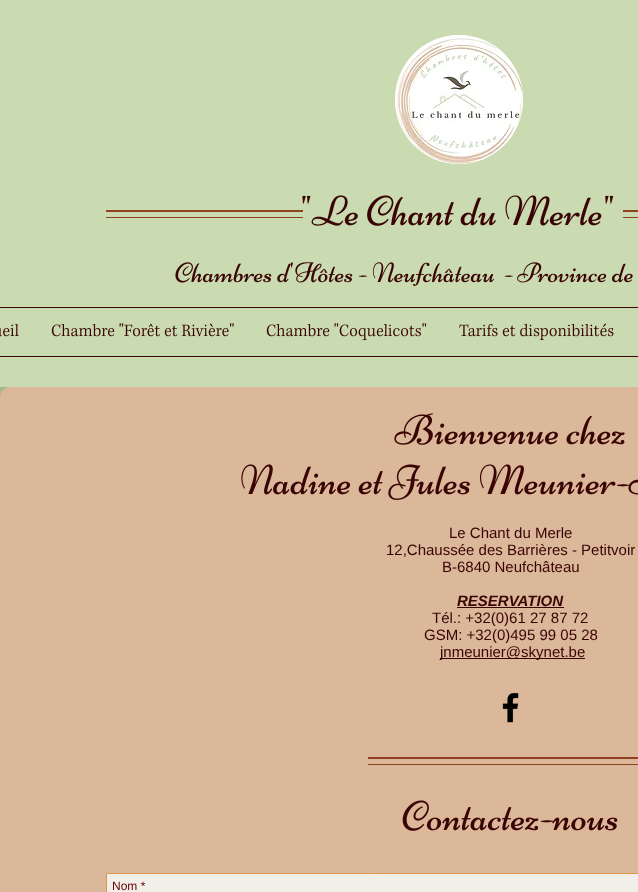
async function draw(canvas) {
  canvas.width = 638
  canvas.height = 892
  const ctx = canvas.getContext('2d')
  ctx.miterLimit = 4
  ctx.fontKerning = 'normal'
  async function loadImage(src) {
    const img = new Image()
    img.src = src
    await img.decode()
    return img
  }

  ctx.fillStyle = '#a5b889'
  ctx.fillRect(0, 0, 638, 892)
  ctx.fillStyle = '#cadbb1'
  ctx.fillRect(0, 0, 638, 387)
  ctx.fillStyle = '#fff'
  ctx.beginPath()
  ctx.roundRect(395, 35, 128, 129, 64)
  ctx.fill()
  ctx.drawImage(await loadImage('image0.png'), 395, 35, 128, 129)
  ctx.fillStyle = '#8f4120'
  ctx.fillRect(106, 210, 197, 2)
  ctx.fillRect(106, 217, 197, 1)
  ctx.drawImage(await loadImage('image1.png'), 302, 195, 312, 31)
  ctx.fillRect(623, 210, 15, 2)
  ctx.fillRect(623, 217, 15, 1)
  ctx.drawImage(await loadImage('image2.png'), 175, 262, 192, 21)
  ctx.drawImage(await loadImage('image3.png'), 372, 262, 261, 24)
  ctx.fillStyle = '#3a0404'
  ctx.fillRect(0, 307, 638, 1)
  ctx.fillRect(0, 356, 638, 1)
  ctx.drawImage(await loadImage('image4.png'), 0, 324, 19, 13)
  ctx.drawImage(await loadImage('image5.png'), 51, 323, 183, 14)
  ctx.drawImage(await loadImage('image6.png'), 266, 323, 161, 18)
  ctx.drawImage(await loadImage('image7.png'), 459, 323, 155, 18)
  ctx.fillStyle = '#dbb89a'
  ctx.beginPath()
  ctx.roundRect(0, 387, 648, 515, 10)
  ctx.fill()
  ctx.drawImage(await loadImage('image8.png'), 394, 413, 231, 32)
  ctx.drawImage(await loadImage('image9.png'), 241, 464, 397, 36)
  ctx.font = '15px Liberation Sans'
  ctx.fillStyle = '#3a0404'
  ctx.fillText('Le Chant du Merle', 449, 538)
  ctx.fillText('12,Chaussée des Barrières - Petitvoir', 386, 555)
  ctx.fillText('B-6840 Neufchâteau', 442, 572)
  ctx.font = 'italic bold 15px Liberation Sans'
  ctx.fillText('RESERVATION', 457, 606)
  ctx.fillRect(457, 607, 107, 1)
  ctx.font = '15px Liberation Sans'
  ctx.fillText('Tél.: +32(0)61 27 87 72', 432, 623)
  ctx.fillText('GSM: +32(0)495 99 05 28', 424, 640)
  ctx.fillRect(440, 658, 145, 1)
  ctx.fillText('jnmeunier@skynet.be', 440, 657)
  ctx.drawImage(await loadImage('image10.png'), 502, 693, 17, 30)
  ctx.fillStyle = '#8f4120'
  ctx.fillRect(368, 757, 270, 2)
  ctx.fillRect(368, 764, 270, 1)
  ctx.drawImage(await loadImage('image11.png'), 402, 800, 216, 31)
  ctx.fillStyle = '#f2efe9'
  ctx.beginPath()
  ctx.rect(106.5, 873.5, 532, 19)
  ctx.fill()
  ctx.strokeStyle = '#dd974b'
  ctx.stroke()
  ctx.font = '12px Liberation Sans'
  ctx.fillStyle = '#600505'
  ctx.fillText('Nom *', 112, 890)
}

draw(document.querySelector('canvas'))
